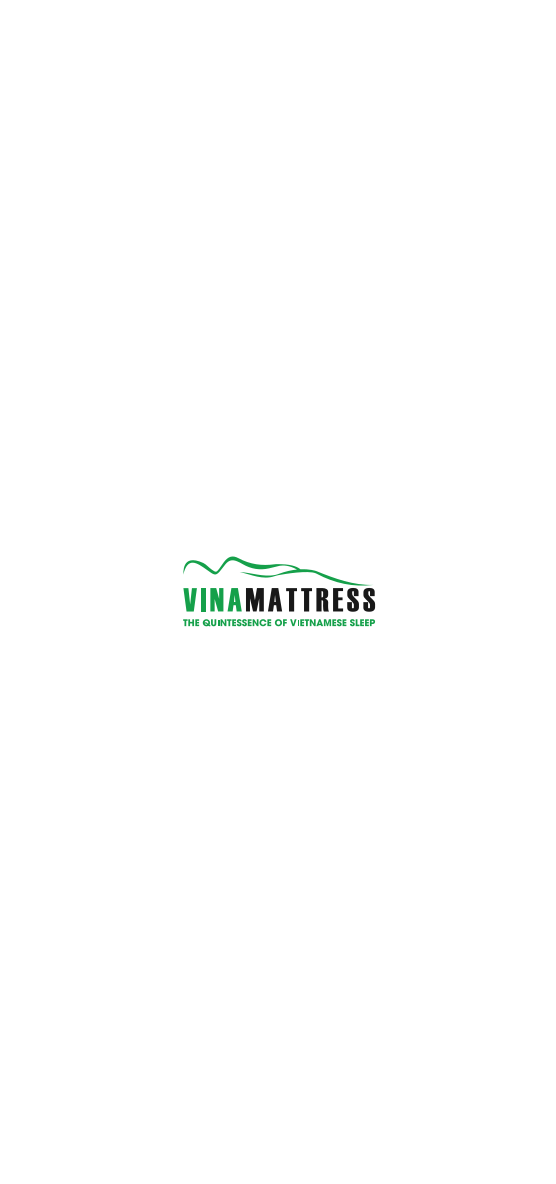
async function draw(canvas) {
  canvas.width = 556
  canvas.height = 1184
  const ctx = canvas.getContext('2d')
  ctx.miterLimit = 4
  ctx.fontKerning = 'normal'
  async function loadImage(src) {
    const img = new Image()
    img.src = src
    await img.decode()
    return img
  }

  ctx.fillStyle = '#fff'
  ctx.fillRect(0, 0, 556, 1184)
  ctx.drawImage(await loadImage('image0.png'), 183, 556, 193, 71)
}

draw(document.querySelector('canvas'))
